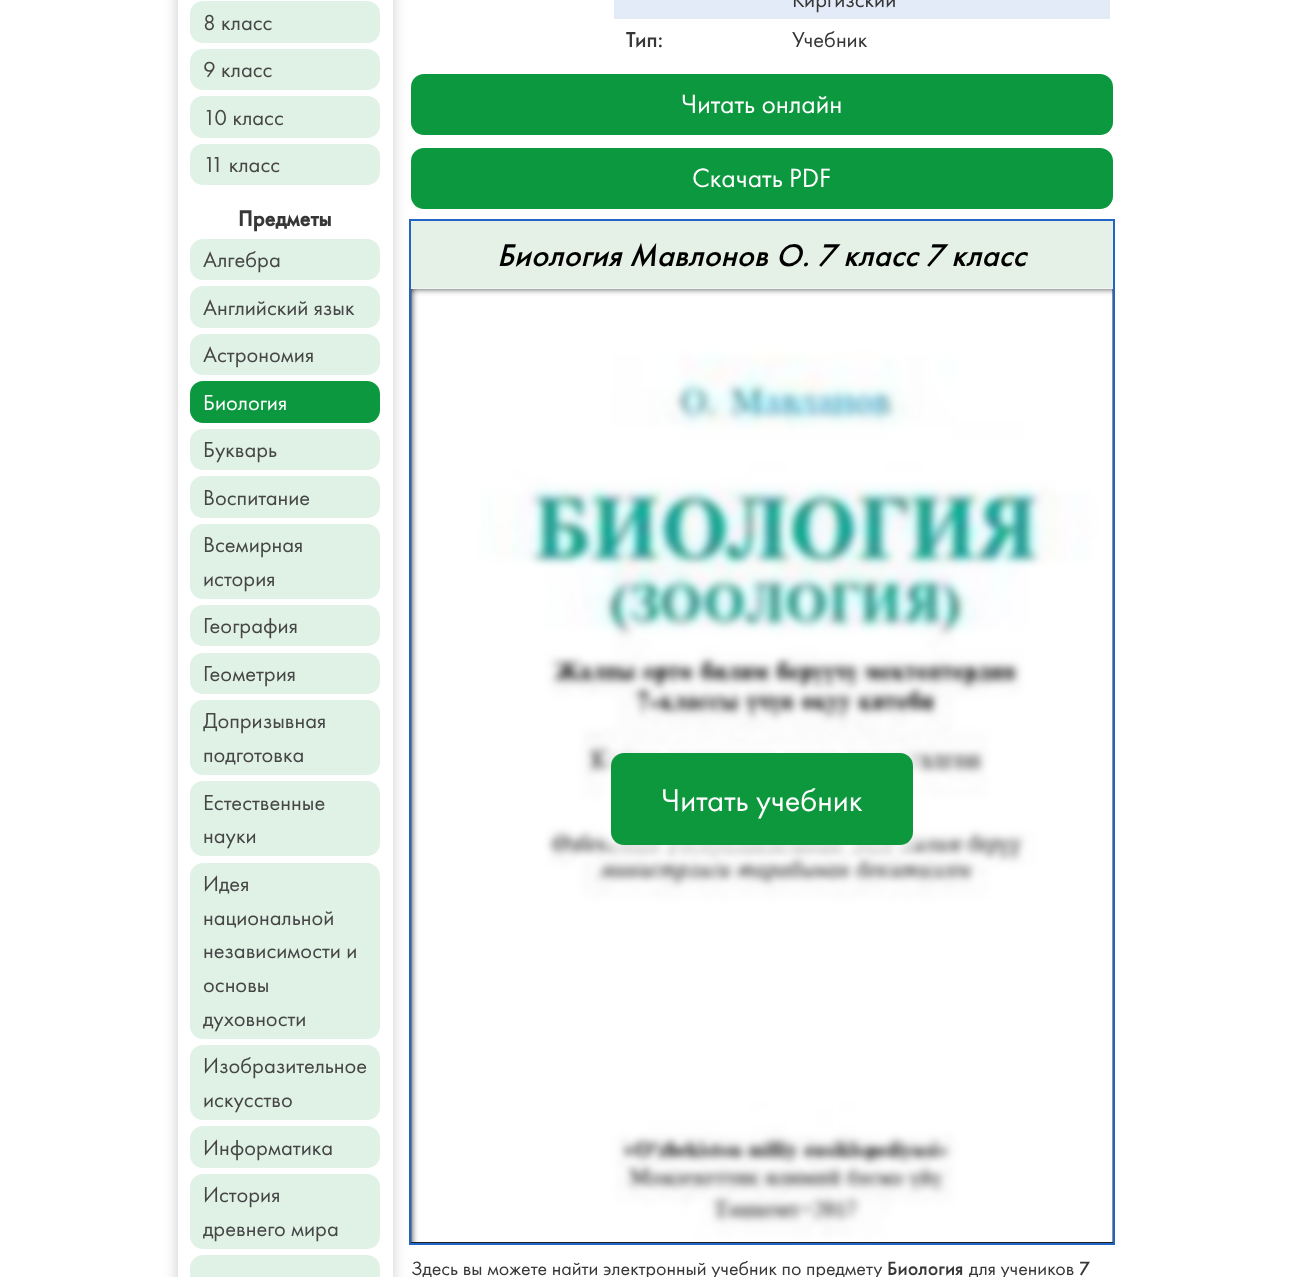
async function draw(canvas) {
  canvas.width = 1289
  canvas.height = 1277
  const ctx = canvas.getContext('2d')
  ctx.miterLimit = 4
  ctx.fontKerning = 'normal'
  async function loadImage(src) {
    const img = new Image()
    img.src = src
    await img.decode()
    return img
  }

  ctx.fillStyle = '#fff'
  ctx.fillRect(0, 0, 1289, 1277)
  ctx.save()
  ctx.beginPath()
  ctx.moveTo(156, 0)
  ctx.lineTo(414, 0)
  ctx.lineTo(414, 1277)
  ctx.lineTo(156, 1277)
  ctx.closePath()
  ctx.moveTo(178, -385)
  ctx.lineTo(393, -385)
  ctx.lineTo(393, 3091)
  ctx.lineTo(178, 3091)
  ctx.closePath()
  ctx.clip('evenodd')
  ctx.fillStyle = '#00000026'
  ctx.filter = 'blur(6px)'
  ctx.beginPath()
  ctx.rect(175, -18, 220, 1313)
  ctx.fill()
  ctx.filter = 'none'
  ctx.restore()
  ctx.fillStyle = '#e0f2e6'
  ctx.beginPath()
  ctx.roundRect(190, 1, 190, 42, 13)
  ctx.fill()
  ctx.font = '22.5px Futura PT'
  ctx.fillStyle = '#464646'
  ctx.fillText('8 класс', 203, 30)
  ctx.fillStyle = '#e0f2e6'
  ctx.beginPath()
  ctx.roundRect(190, 49, 190, 41, 13)
  ctx.fill()
  ctx.fillStyle = '#464646'
  ctx.fillText('9 класс', 203, 77)
  ctx.fillStyle = '#e0f2e6'
  ctx.beginPath()
  ctx.roundRect(190, 96, 190, 42, 13)
  ctx.fill()
  ctx.fillStyle = '#464646'
  ctx.fillText('10 класс', 203, 125)
  ctx.fillStyle = '#e0f2e6'
  ctx.beginPath()
  ctx.roundRect(190, 144, 190, 41, 13)
  ctx.fill()
  ctx.fillStyle = '#464646'
  ctx.fillText('11 класс', 203, 172)
  ctx.font = 'bold 22.5px Futura PT'
  ctx.fillStyle = '#373737'
  ctx.fillText('Предметы', 238, 226)
  ctx.fillStyle = '#e0f2e6'
  ctx.beginPath()
  ctx.roundRect(190, 239, 190, 41, 13)
  ctx.fill()
  ctx.font = '22.5px Futura PT'
  ctx.fillStyle = '#464646'
  ctx.fillText('Алгебра', 203, 267)
  ctx.fillStyle = '#e0f2e6'
  ctx.beginPath()
  ctx.roundRect(190, 286, 190, 42, 13)
  ctx.fill()
  ctx.fillStyle = '#464646'
  ctx.fillText('Английский язык', 203, 315)
  ctx.fillStyle = '#e0f2e6'
  ctx.beginPath()
  ctx.roundRect(190, 334, 190, 41, 13)
  ctx.fill()
  ctx.fillStyle = '#464646'
  ctx.fillText('Астрономия', 203, 362)
  ctx.fillStyle = '#0c983e'
  ctx.beginPath()
  ctx.roundRect(190, 381, 190, 42, 13)
  ctx.fill()
  ctx.fillStyle = '#fff'
  ctx.fillText('Биология', 203, 410)
  ctx.fillStyle = '#e0f2e6'
  ctx.beginPath()
  ctx.roundRect(190, 429, 190, 41, 13)
  ctx.fill()
  ctx.fillStyle = '#464646'
  ctx.fillText('Букварь', 203, 457)
  ctx.fillStyle = '#e0f2e6'
  ctx.beginPath()
  ctx.roundRect(190, 476, 190, 42, 13)
  ctx.fill()
  ctx.fillStyle = '#464646'
  ctx.fillText('Воспитание', 203, 505)
  ctx.fillStyle = '#e0f2e6'
  ctx.beginPath()
  ctx.roundRect(190, 524, 190, 75, 13)
  ctx.fill()
  ctx.fillStyle = '#464646'
  ctx.fillText('Всемирная', 203, 552)
  ctx.fillText('история', 203, 586)
  ctx.fillStyle = '#e0f2e6'
  ctx.beginPath()
  ctx.roundRect(190, 605, 190, 41, 13)
  ctx.fill()
  ctx.fillStyle = '#464646'
  ctx.fillText('География', 203, 633)
  ctx.fillStyle = '#e0f2e6'
  ctx.beginPath()
  ctx.roundRect(190, 653, 190, 41, 13)
  ctx.fill()
  ctx.fillStyle = '#464646'
  ctx.fillText('Геометрия', 203, 681)
  ctx.fillStyle = '#e0f2e6'
  ctx.beginPath()
  ctx.roundRect(190, 700, 190, 75, 13)
  ctx.fill()
  ctx.fillStyle = '#464646'
  ctx.fillText('Допризывная', 203, 728)
  ctx.fillText('подготовка', 203, 762)
  ctx.fillStyle = '#e0f2e6'
  ctx.beginPath()
  ctx.roundRect(190, 781, 190, 75, 13)
  ctx.fill()
  ctx.fillStyle = '#464646'
  ctx.fillText('Естественные', 203, 810)
  ctx.fillText('науки', 203, 843)
  ctx.fillStyle = '#e0f2e6'
  ctx.beginPath()
  ctx.roundRect(190, 863, 190, 176, 13)
  ctx.fill()
  ctx.fillStyle = '#464646'
  ctx.fillText('Идея', 203, 891)
  ctx.fillText('национальной', 203, 925)
  ctx.fillText('независимости и', 203, 958)
  ctx.fillText('основы', 203, 992)
  ctx.fillText('духовности', 203, 1026)
  ctx.fillStyle = '#e0f2e6'
  ctx.beginPath()
  ctx.roundRect(190, 1045, 190, 75, 13)
  ctx.fill()
  ctx.fillStyle = '#464646'
  ctx.fillText('Изобразительное', 203, 1073)
  ctx.fillText('искусство', 203, 1107)
  ctx.fillStyle = '#e0f2e6'
  ctx.beginPath()
  ctx.roundRect(190, 1126, 190, 42, 13)
  ctx.fill()
  ctx.fillStyle = '#464646'
  ctx.fillText('Информатика', 203, 1155)
  ctx.fillStyle = '#e0f2e6'
  ctx.beginPath()
  ctx.roundRect(190, 1174, 190, 75, 13)
  ctx.fill()
  ctx.fillStyle = '#464646'
  ctx.fillText('История', 203, 1202)
  ctx.fillText('древнего мира', 203, 1236)
  ctx.fillStyle = '#e0f2e6'
  ctx.beginPath()
  ctx.roundRect(190, 1255, 190, 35, 13)
  ctx.fill()
  ctx.fillStyle = '#e2ebf7'
  ctx.fillRect(614, 0, 496, 19)
  ctx.fillStyle = '#373737'
  ctx.fillText('Киргизский', 792, 7)
  ctx.font = '500 22.5px Futura PT'
  ctx.fillText('Тип:', 626, 47)
  ctx.font = '22.5px Futura PT'
  ctx.fillText('Учебник', 792, 47)
  ctx.fillStyle = '#0c983e'
  ctx.beginPath()
  ctx.roundRect(411, 74, 702, 61, 13)
  ctx.fill()
  ctx.font = '27.5px Futura PT'
  ctx.fillStyle = '#fff'
  ctx.fillText('Читать онлайн', 681, 113)
  ctx.fillStyle = '#0c983e'
  ctx.beginPath()
  ctx.roundRect(411, 148, 702, 61, 13)
  ctx.fill()
  ctx.fillStyle = '#fff'
  ctx.fillText('Скачать PDF', 692, 187)
  ctx.strokeStyle = '#2166c4'
  ctx.lineWidth = 3
  ctx.strokeRect(410.5, 220.5, 703, 1023)
  ctx.fillStyle = '#e5f1e6'
  ctx.fillRect(411, 221, 702, 68)
  ctx.font = 'italic 500 32.5px Futura PT'
  ctx.fillStyle = '#000'
  ctx.fillText('Биология Мавлонов О. 7 класс 7 класс', 497, 266)
  ctx.fillStyle = '#222429'
  ctx.fillRect(411, 289, 702, 954)
  ctx.drawImage(await loadImage('image0.png'), 411, 288, 702, 954)
  ctx.fillStyle = '#ffffffb3'
  ctx.filter = 'blur(4px)'
  ctx.beginPath()
  ctx.roundRect(604, 745, 316, 108, 20)
  ctx.fill()
  ctx.filter = 'none'
  ctx.fillStyle = '#0e983e'
  ctx.beginPath()
  ctx.roundRect(611, 753, 302, 92, 13)
  ctx.fill()
  ctx.font = '32.5px Futura PT'
  ctx.fillStyle = '#fff'
  ctx.fillText('Читать учебник', 661, 811)
  ctx.font = '20px Futura PT'
  ctx.fillStyle = '#373737'
  ctx.fillText('Здесь вы можете найти электронный учебник по предмету', 411, 1275)
  ctx.font = '500 20px Futura PT'
  ctx.fillText('Биология', 887, 1275)
  ctx.font = '20px Futura PT'
  ctx.fillText('для учеников', 969, 1275)
  ctx.font = '500 20px Futura PT'
  ctx.fillText('7', 1079, 1275)
}

draw(document.querySelector('canvas'))
